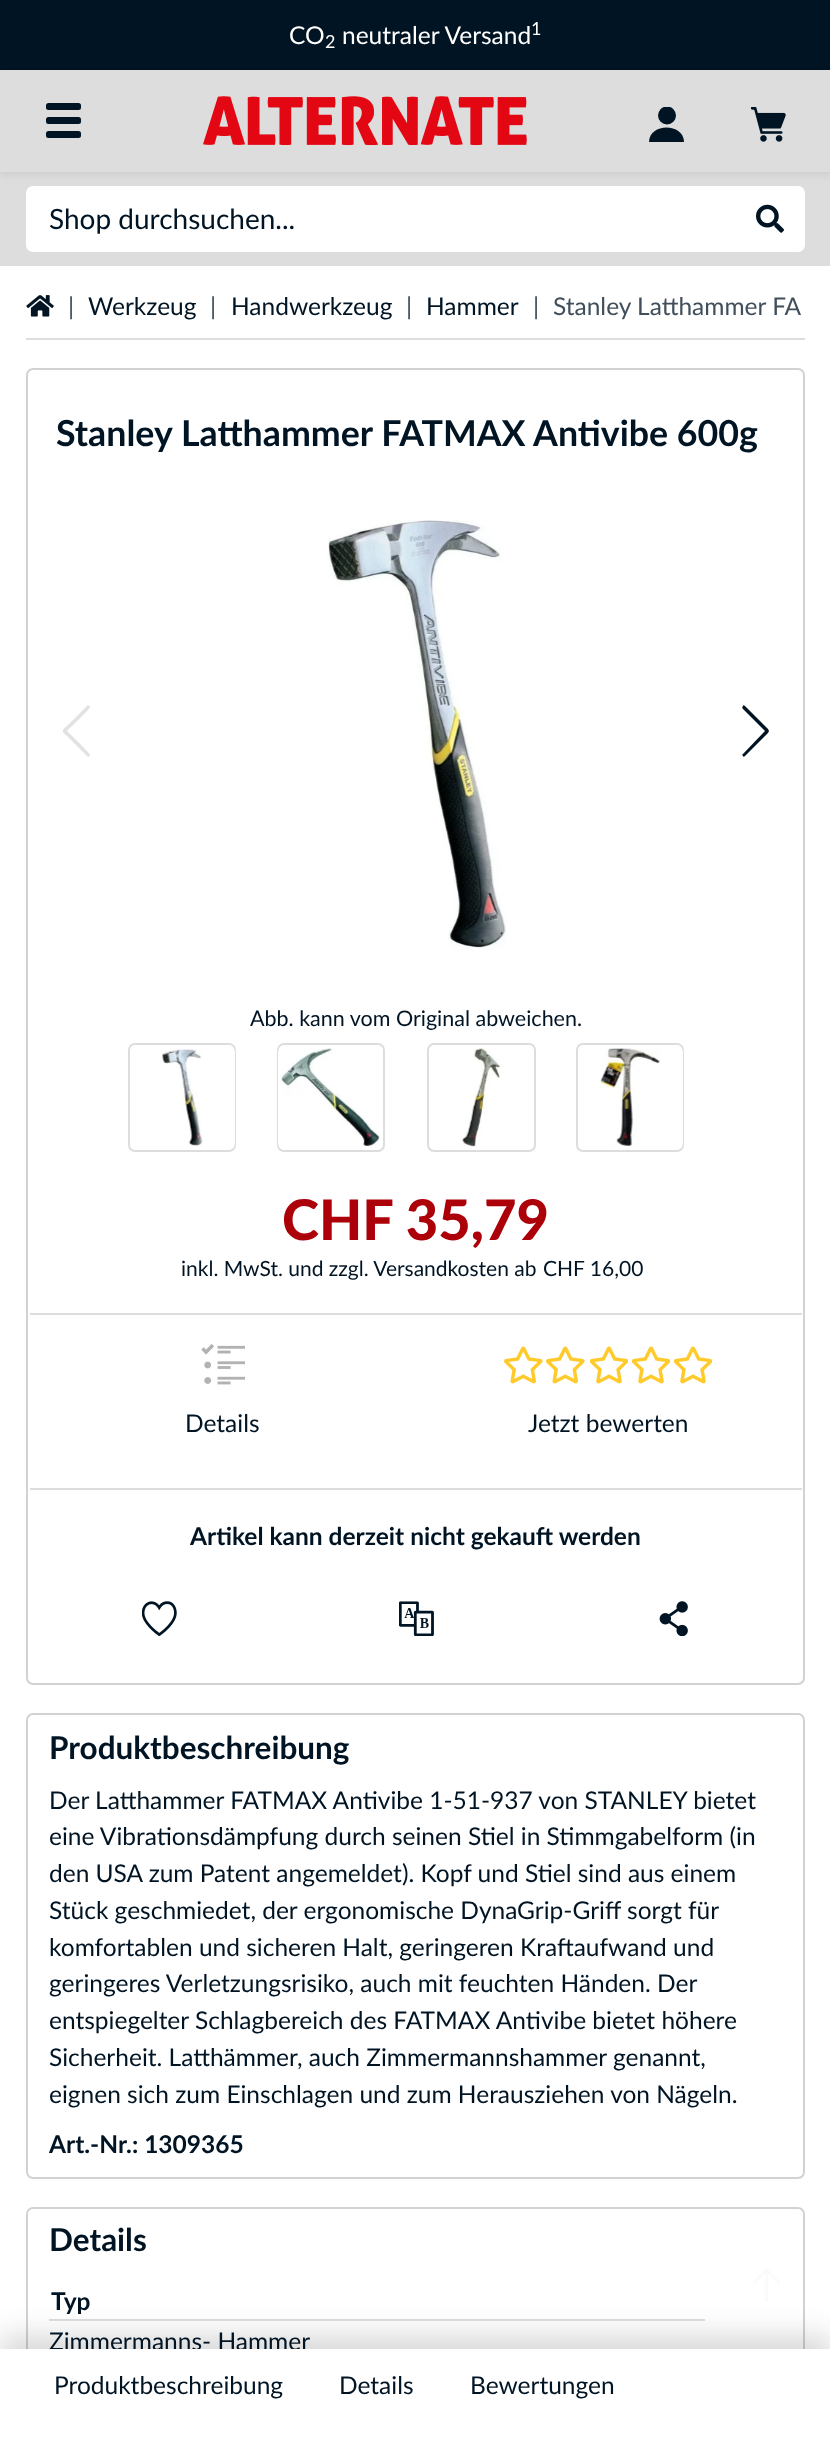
async function draw(canvas) {
  canvas.width = 830
  canvas.height = 2444
  const ctx = canvas.getContext('2d')
  ctx.miterLimit = 4
  ctx.fontKerning = 'normal'
  async function loadImage(src) {
    const img = new Image()
    img.src = src
    await img.decode()
    return img
  }

  ctx.fillStyle = '#fff'
  ctx.fillRect(0, 0, 830, 2444)
  ctx.fillStyle = '#001424'
  ctx.fillRect(0, 0, 830, 70)
  ctx.font = '24.5px Lato'
  ctx.fillStyle = '#fff'
  ctx.fillText('CO', 289, 44)
  ctx.font = '18px Lato'
  ctx.fillText('2', 325, 48)
  ctx.font = '24.5px Lato'
  ctx.fillText('neutraler Versand', 342, 44)
  ctx.font = '18px Lato'
  ctx.fillText('1', 531, 35)
  ctx.fillStyle = '#ddd'
  ctx.fillRect(0, 70, 830, 196)
  ctx.save()
  ctx.beginPath()
  ctx.moveTo(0, 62)
  ctx.lineTo(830, 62)
  ctx.lineTo(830, 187)
  ctx.lineTo(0, 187)
  ctx.closePath()
  ctx.moveTo(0, 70)
  ctx.lineTo(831, 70)
  ctx.lineTo(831, 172)
  ctx.lineTo(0, 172)
  ctx.closePath()
  ctx.clip('evenodd')
  ctx.fillStyle = '#00000012'
  ctx.filter = 'blur(3.5px)'
  ctx.beginPath()
  ctx.rect(0, 74, 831, 101)
  ctx.fill()
  ctx.filter = 'none'
  ctx.restore()
  ctx.fillStyle = '#001424'
  ctx.beginPath()
  ctx.roundRect(46, 103, 35, 7, 2.5)
  ctx.fill()
  ctx.beginPath()
  ctx.roundRect(46, 117, 35, 7, 2.5)
  ctx.fill()
  ctx.beginPath()
  ctx.roundRect(46, 131, 35, 7, 2.5)
  ctx.fill()
  ctx.drawImage(await loadImage('image0.png'), 203, 96, 324, 49)
  ctx.save()
  ctx.beginPath()
  ctx.rect(649, 107, 35, 35)
  ctx.clip()
  ctx.beginPath()
  ctx.arc(667, 115.5, 9, 0, 2 * Math.PI)
  ctx.fill()
  ctx.restore()
  ctx.beginPath()
  ctx.moveTo(684, 142)
  ctx.lineTo(649, 142)
  ctx.bezierCurveTo(649, 122.5, 684, 122.5, 684, 142)
  ctx.fill()
  ctx.drawImage(await loadImage('image1.png'), 751, 107, 35, 35)
  ctx.fillStyle = '#fff'
  ctx.beginPath()
  ctx.roundRect(27, 187, 707, 64, [6, 0, 0, 6])
  ctx.fill()
  ctx.strokeStyle = '#fff'
  ctx.lineWidth = 2
  ctx.stroke()
  ctx.font = '28px Lato'
  ctx.fillStyle = '#001424'
  ctx.fillText('Shop durchsuchen...', 49, 229)
  ctx.fillStyle = '#fff'
  ctx.beginPath()
  ctx.roundRect(735, 186, 70, 66, [0, 7, 7, 0])
  ctx.fill()
  ctx.drawImage(await loadImage('image2.png'), 756, 204, 28, 29)
  ctx.fillStyle = '#ddd'
  ctx.fillRect(26, 338, 779, 2)
  ctx.drawImage(await loadImage('image3.png'), 26, 295, 28, 22)
  ctx.font = '24.5px Lato'
  ctx.fillStyle = '#404f5b'
  ctx.fillText('|', 68, 315)
  ctx.fillStyle = '#001424'
  ctx.fillText('Werkzeug', 88, 315)
  ctx.fillStyle = '#404f5b'
  ctx.fillText('|', 210, 315)
  ctx.fillStyle = '#001424'
  ctx.fillText('Handwerkzeug', 231, 315)
  ctx.fillStyle = '#404f5b'
  ctx.fillText('|', 406, 315)
  ctx.fillStyle = '#001424'
  ctx.fillText('Hammer', 426, 315)
  ctx.fillStyle = '#404f5b'
  ctx.fillText('|', 533, 315)
  ctx.fillText('Stanley Latthammer FA', 553, 315)
  ctx.beginPath()
  ctx.roundRect(27, 369, 777, 1315, 6)
  ctx.strokeStyle = '#d2d2d2'
  ctx.stroke()
  ctx.font = 'bold 35.75px Lato'
  ctx.fillStyle = '#001424'
  ctx.fillText('Stanley', 56, 446)
  ctx.fillText('Latthammer FATMAX Antivibe 600g', 181, 446)
  ctx.fillStyle = '#e0e2e4'
  ctx.beginPath()
  ctx.moveTo(87, 706)
  ctx.bezierCurveTo(88, 705, 90, 706, 90, 707)
  ctx.bezierCurveTo(90, 709, 70, 728, 67, 731)
  ctx.bezierCurveTo(70, 734, 90, 753, 90, 755)
  ctx.bezierCurveTo(89, 759, 86, 755, 83, 752)
  ctx.lineTo(68, 737)
  ctx.bezierCurveTo(61, 731, 61, 731, 68, 725)
  ctx.closePath()
  ctx.fill()
  ctx.drawImage(await loadImage('image4.png'), 327, 520, 180, 429)
  ctx.fillStyle = '#001424'
  ctx.beginPath()
  ctx.moveTo(743, 756)
  ctx.bezierCurveTo(742, 755, 742, 754, 743, 754)
  ctx.lineTo(765, 731)
  ctx.lineTo(743, 709)
  ctx.bezierCurveTo(742, 708, 742, 707, 743, 706)
  ctx.bezierCurveTo(743, 705, 744, 705, 745, 706)
  ctx.lineTo(768, 729)
  ctx.lineTo(769, 731)
  ctx.lineTo(768, 733)
  ctx.lineTo(745, 756)
  ctx.bezierCurveTo(744, 757, 743, 757, 743, 756)
  ctx.closePath()
  ctx.fill()
  ctx.font = '21.5px Lato'
  ctx.fillText('Abb. kann vom Original abweichen.', 250, 1026)
  ctx.beginPath()
  ctx.roundRect(129, 1044, 106, 107, 6)
  ctx.strokeStyle = '#ddd'
  ctx.stroke()
  ctx.fillStyle = '#fff'
  ctx.beginPath()
  ctx.roundRect(132, 1047, 101, 101, 5)
  ctx.fill()
  ctx.strokeStyle = '#fff'
  ctx.lineWidth = 4
  ctx.stroke()
  ctx.drawImage(await loadImage('image5.png'), 162, 1049, 41, 97)
  ctx.beginPath()
  ctx.roundRect(278, 1044, 106, 107, 6)
  ctx.strokeStyle = '#ddd'
  ctx.lineWidth = 2
  ctx.stroke()
  ctx.beginPath()
  ctx.roundRect(280, 1047, 101, 101, 5)
  ctx.strokeStyle = '#fff'
  ctx.lineWidth = 4
  ctx.stroke()
  ctx.drawImage(await loadImage('image6.png'), 281, 1048, 99, 98)
  ctx.beginPath()
  ctx.roundRect(428, 1044, 107, 107, 6)
  ctx.strokeStyle = '#ddd'
  ctx.lineWidth = 2
  ctx.stroke()
  ctx.drawImage(await loadImage('image7.png'), 462, 1048, 39, 99)
  ctx.beginPath()
  ctx.roundRect(577, 1044, 106, 107, 6)
  ctx.stroke()
  ctx.beginPath()
  ctx.roundRect(580, 1047, 101, 101, 5)
  ctx.fill()
  ctx.strokeStyle = '#fff'
  ctx.lineWidth = 4
  ctx.stroke()
  ctx.drawImage(await loadImage('image8.png'), 600, 1048, 60, 98)
  ctx.fillStyle = '#ddd'
  ctx.fillRect(30, 1313, 772, 2)
  ctx.font = '900 56px Lato'
  ctx.fillStyle = '#ad0109'
  ctx.fillText('CHF 35,79', 282, 1240)
  ctx.font = '21px Lato'
  ctx.fillStyle = '#001424'
  ctx.fillText('inkl. MwSt. und zzgl. Versandkosten ab', 181, 1276)
  ctx.fillText('CHF 16,00', 543, 1276)
  ctx.fillStyle = '#ddd'
  ctx.fillRect(30, 1488, 772, 2)
  ctx.drawImage(await loadImage('image9.png'), 201, 1344, 44, 41)
  ctx.font = '24.5px Lato'
  ctx.fillStyle = '#001424'
  ctx.fillText('Details', 185, 1432)
  ctx.drawImage(await loadImage('image10.png'), 504, 1346, 39, 38)
  ctx.drawImage(await loadImage('image10.png'), 546, 1346, 39, 38)
  ctx.drawImage(await loadImage('image11.png'), 590, 1346, 38, 38)
  ctx.drawImage(await loadImage('image11.png'), 632, 1346, 38, 38)
  ctx.drawImage(await loadImage('image11.png'), 674, 1346, 38, 38)
  ctx.fillText('Jetzt bewerten', 528, 1432)
  ctx.font = 'bold 24.5px Lato'
  ctx.fillText('Artikel kann derzeit nicht gekauft werden', 190, 1545)
  ctx.beginPath()
  ctx.roundRect(27, 2208, 777, 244, 6)
  ctx.strokeStyle = '#d2d2d2'
  ctx.lineWidth = 2
  ctx.stroke()
  ctx.fillStyle = '#ddd'
  ctx.fillRect(49, 2319, 656, 2)
  ctx.drawImage(await loadImage('image15.png'), 753, 2268, 27, 34)
  ctx.fillStyle = '#00000026'
  ctx.filter = 'blur(14px)'
  ctx.beginPath()
  ctx.rect(0, 2335, 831, 96)
  ctx.fill()
  ctx.filter = 'none'
  ctx.font = '24.5px Lato'
  ctx.fillStyle = '#001424'
  ctx.fillText('Zimmermanns- Hammer', 49, 2350)
  ctx.fillStyle = '#fff'
  ctx.fillRect(0, 2349, 830, 95)
  ctx.fillStyle = '#001424'
  ctx.fillText('Produktbeschreibung', 54, 2394)
  ctx.fillText('Details', 339, 2394)
  ctx.fillText('Bewertungen', 470, 2394)
  ctx.drawImage(await loadImage('image12.png'), 142, 1601, 35, 35)
  ctx.drawImage(await loadImage('image13.png'), 399, 1601, 35, 35)
  ctx.drawImage(await loadImage('image14.png'), 659, 1601, 29, 35)
  ctx.beginPath()
  ctx.roundRect(27, 1714, 777, 464, 6)
  ctx.stroke()
  ctx.font = 'bold 31.5px Lato'
  ctx.fillText('Produktbeschreibung', 49, 1759)
  ctx.font = '24.5px Lato'
  ctx.fillText('Der Latthammer FATMAX Antivibe 1-51-937 von STANLEY bietet', 49, 1809)
  ctx.fillText('eine Vibrationsdämpfung durch seinen Stiel in Stimmgabelform (in', 49, 1845)
  ctx.fillText('den USA zum Patent angemeldet). Kopf und Stiel sind aus einem', 49, 1882)
  ctx.fillText('Stück geschmiedet, der ergonomische DynaGrip-Griff sorgt für', 49, 1919)
  ctx.fillText('komfortablen und sicheren Halt, geringeren Kraftaufwand und', 49, 1956)
  ctx.fillText('geringeres Verletzungsrisiko, auch mit feuchten Händen. Der', 49, 1992)
  ctx.fillText('entspiegelter Schlagbereich des FATMAX Antivibe bietet höhere', 49, 2029)
  ctx.fillText('Sicherheit. Latthämmer, auch Zimmermannshammer genannt,', 49, 2066)
  ctx.fillText('eignen sich zum Einschlagen und zum Herausziehen von Nägeln.', 49, 2103)
  ctx.font = 'bold 24.5px Lato'
  ctx.fillText('Art.-Nr.: 1309365', 49, 2153)
  ctx.font = 'bold 31.5px Lato'
  ctx.fillText('Details', 49, 2251)
  ctx.font = 'bold 24.5px Lato'
  ctx.fillText('Typ', 51, 2310)
}

draw(document.querySelector('canvas'))
